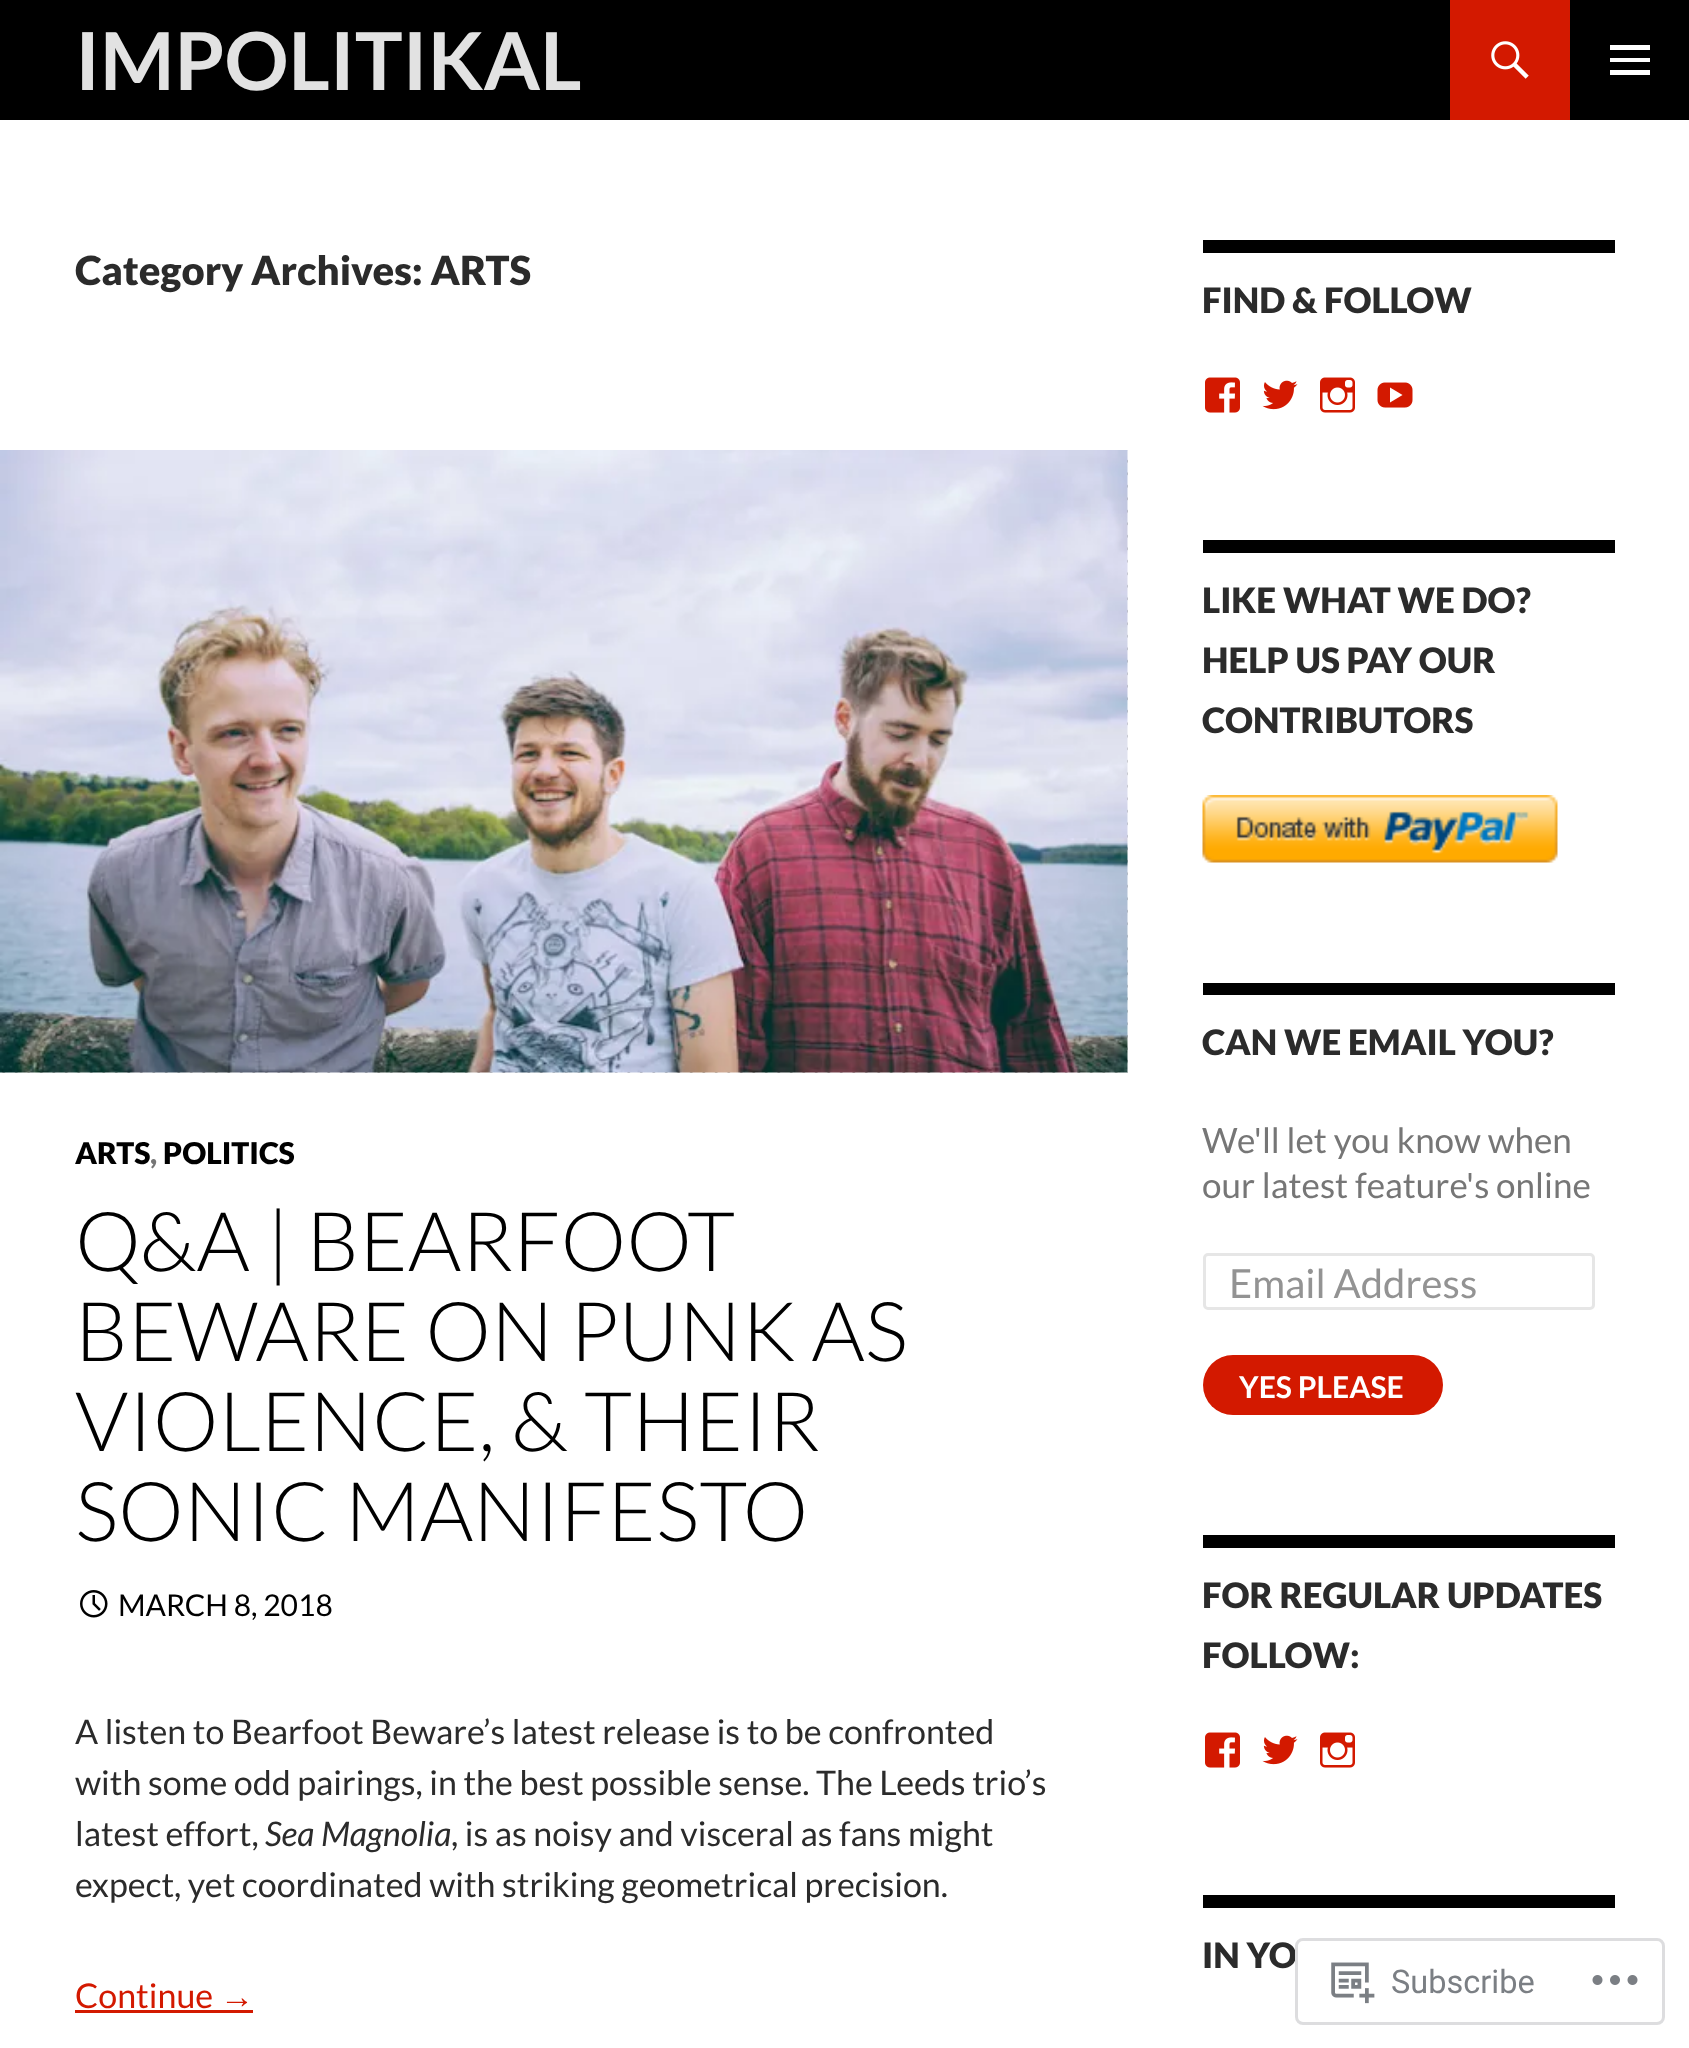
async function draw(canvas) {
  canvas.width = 1689
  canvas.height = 2048
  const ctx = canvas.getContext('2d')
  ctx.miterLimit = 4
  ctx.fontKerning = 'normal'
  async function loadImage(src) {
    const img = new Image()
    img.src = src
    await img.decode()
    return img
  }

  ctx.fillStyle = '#fff'
  ctx.fillRect(0, 0, 1689, 2048)
  ctx.fillStyle = '#000'
  ctx.fillRect(0, 0, 1689, 120)
  ctx.font = 'bold 80px Lato'
  ctx.fillStyle = '#e2e2e2'
  ctx.fillText('IMPOLITIKAL', 75, 90)
  ctx.fillStyle = '#d31900'
  ctx.fillRect(1450, 0, 120, 120)
  ctx.drawImage(await loadImage('image0.png'), 1491, 41, 38, 38)
  ctx.fillStyle = '#fff'
  ctx.beginPath()
  ctx.moveTo(1610, 75)
  ctx.lineTo(1610, 70)
  ctx.lineTo(1650, 70)
  ctx.lineTo(1650, 75)
  ctx.closePath()
  ctx.moveTo(1610, 45)
  ctx.lineTo(1650, 45)
  ctx.lineTo(1650, 50)
  ctx.lineTo(1610, 50)
  ctx.closePath()
  ctx.moveTo(1610, 62)
  ctx.lineTo(1610, 58)
  ctx.lineTo(1650, 58)
  ctx.lineTo(1650, 62)
  ctx.closePath()
  ctx.fill()
  ctx.font = '900 40px Lato'
  ctx.fillStyle = '#2b2b2b'
  ctx.fillText('Category Archives: ARTS', 75, 285)
  ctx.fillStyle = '#b2b2b2'
  ctx.fillRect(2, 450, 1126, 623)
  ctx.drawImage(await loadImage('image1.png'), 0, 450, 1128, 623)
  ctx.drawImage(await loadImage('image2.png'), 0, 450, 1128, 623)
  ctx.font = '900 30px Lato'
  ctx.fillStyle = '#000'
  ctx.fillText('ARTS', 75, 1164)
  ctx.fillStyle = '#767676'
  ctx.fillText(',', 150, 1164)
  ctx.fillStyle = '#000'
  ctx.fillText('POLITICS', 163, 1164)
  ctx.font = '300 82.5px Lato'
  ctx.fillText('Q&A | BEARFOOT', 75, 1271)
  ctx.fillText('BEWARE ON PUNK AS', 75, 1361)
  ctx.fillText('VIOLENCE, & THEIR', 75, 1451)
  ctx.fillText('SONIC MANIFESTO', 75, 1541)
  ctx.drawImage(await loadImage('image3.png'), 80, 1590, 28, 28)
  ctx.font = '30px Lato'
  ctx.fillText('MARCH 8, 2018', 118, 1616)
  ctx.font = '34px Lato'
  ctx.fillStyle = '#2b2b2b'
  ctx.fillText('A listen to Bearfoot Beware’s latest release is to be confronted', 75, 1744)
  ctx.fillText('with some odd pairings, in the best possible sense. The Leeds trio’s', 75, 1795)
  ctx.fillText('latest effort,', 75, 1846)
  ctx.font = 'italic 34px Lato'
  ctx.fillText('Sea Magnolia', 265, 1846)
  ctx.font = '34px Lato'
  ctx.fillText(', is as noisy and visceral as fans might', 451, 1846)
  ctx.fillText('expect, yet coordinated with striking geometrical precision.', 75, 1897)
  ctx.fillStyle = '#d31900'
  ctx.fillText('Continue', 75, 2008)
  ctx.font = '34px Liberation Sans'
  ctx.fillText('→', 220, 2008)
  ctx.fillRect(75, 2010, 178, 3)
  ctx.fillStyle = '#000'
  ctx.fillRect(1203, 240, 412, 13)
  ctx.font = '900 35px Lato'
  ctx.fillStyle = '#2b2b2b'
  ctx.fillText('FIND & FOLLOW', 1202, 313)
  ctx.drawImage(await loadImage('image4.png'), 1205, 377, 35, 36)
  ctx.drawImage(await loadImage('image5.png'), 1262, 380, 36, 30)
  ctx.drawImage(await loadImage('image6.png'), 1320, 377, 35, 36)
  ctx.drawImage(await loadImage('image7.png'), 1377, 382, 36, 26)
  ctx.fillStyle = '#000'
  ctx.fillRect(1203, 540, 412, 13)
  ctx.fillStyle = '#2b2b2b'
  ctx.fillText('LIKE WHAT WE DO?', 1202, 613)
  ctx.fillText('HELP US PAY OUR', 1202, 673)
  ctx.fillText('CONTRIBUTORS', 1202, 733)
  ctx.drawImage(await loadImage('image8.png'), 1202, 795, 356, 68)
  ctx.fillStyle = '#000'
  ctx.fillRect(1203, 983, 412, 12)
  ctx.fillStyle = '#2b2b2b'
  ctx.fillText('CAN WE EMAIL YOU?', 1202, 1055)
  ctx.font = '35px Lato'
  ctx.fillStyle = '#767676'
  ctx.fillText('We\'ll let you know when', 1202, 1153)
  ctx.fillText('our latest feature\'s online', 1202, 1198)
  ctx.beginPath()
  ctx.roundRect(1204.5, 1254.5, 389, 54, 3.5)
  ctx.strokeStyle = '#e6e6e6'
  ctx.lineWidth = 3
  ctx.stroke()
  ctx.font = '40px Lato'
  ctx.fillStyle = '#939393'
  ctx.fillText('Email Address', 1229, 1298)
  ctx.fillStyle = '#d31900'
  ctx.beginPath()
  ctx.roundRect(1203, 1355, 240, 60, 30)
  ctx.fill()
  ctx.font = 'bold 30px Lato'
  ctx.fillStyle = '#fff'
  ctx.fillText('YES PLEASE', 1239, 1398)
  ctx.fillStyle = '#000'
  ctx.fillRect(1203, 1535, 412, 13)
  ctx.font = '900 35px Lato'
  ctx.fillStyle = '#2b2b2b'
  ctx.fillText('FOR REGULAR UPDATES', 1202, 1608)
  ctx.fillText('FOLLOW:', 1202, 1668)
  ctx.drawImage(await loadImage('image4.png'), 1205, 1732, 35, 36)
  ctx.drawImage(await loadImage('image5.png'), 1262, 1735, 36, 30)
  ctx.drawImage(await loadImage('image6.png'), 1320, 1732, 35, 36)
  ctx.fillStyle = '#000'
  ctx.fillRect(1203, 1895, 412, 13)
  ctx.fillStyle = '#2b2b2b'
  ctx.fillText('IN YO', 1202, 1968)
  ctx.fillStyle = '#fffffffa'
  ctx.beginPath()
  ctx.roundRect(1295, 1938, 370, 87, 8)
  ctx.fill()
  ctx.beginPath()
  ctx.roundRect(1296.5, 1939.5, 367, 84, 6.5)
  ctx.strokeStyle = '#dcdcdefa'
  ctx.stroke()
  ctx.drawImage(await loadImage('image9.png'), 1331, 1962, 44, 42)
  ctx.font = '32.5px Roboto'
  ctx.fillStyle = '#7b7f84'
  ctx.fillText('Subscribe', 1391, 1993)
  ctx.drawImage(await loadImage('image10.png'), 1592, 1975, 46, 10)
}

draw(document.querySelector('canvas'))
